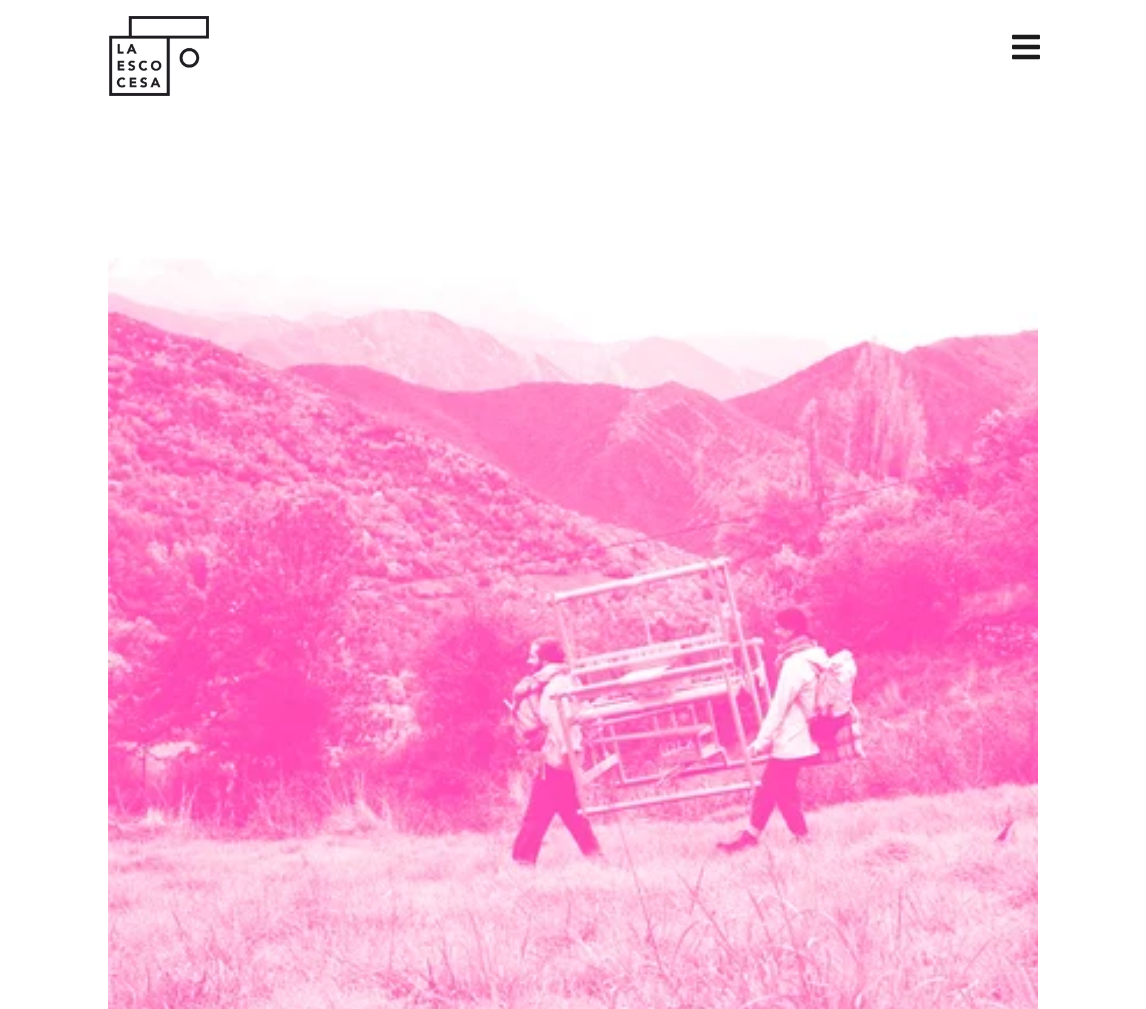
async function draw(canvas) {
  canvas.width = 1146
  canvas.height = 1009
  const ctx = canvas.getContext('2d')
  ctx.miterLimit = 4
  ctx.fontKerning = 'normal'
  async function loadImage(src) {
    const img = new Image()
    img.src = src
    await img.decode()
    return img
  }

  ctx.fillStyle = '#fff'
  ctx.fillRect(0, 0, 1146, 1009)
  ctx.drawImage(await loadImage('image0.png'), 109, 16, 100, 80)
  ctx.drawImage(await loadImage('image1.png'), 1012, 34, 28, 26)
  ctx.drawImage(await loadImage('image2.png'), 108, 258, 930, 751)
}

draw(document.querySelector('canvas'))
